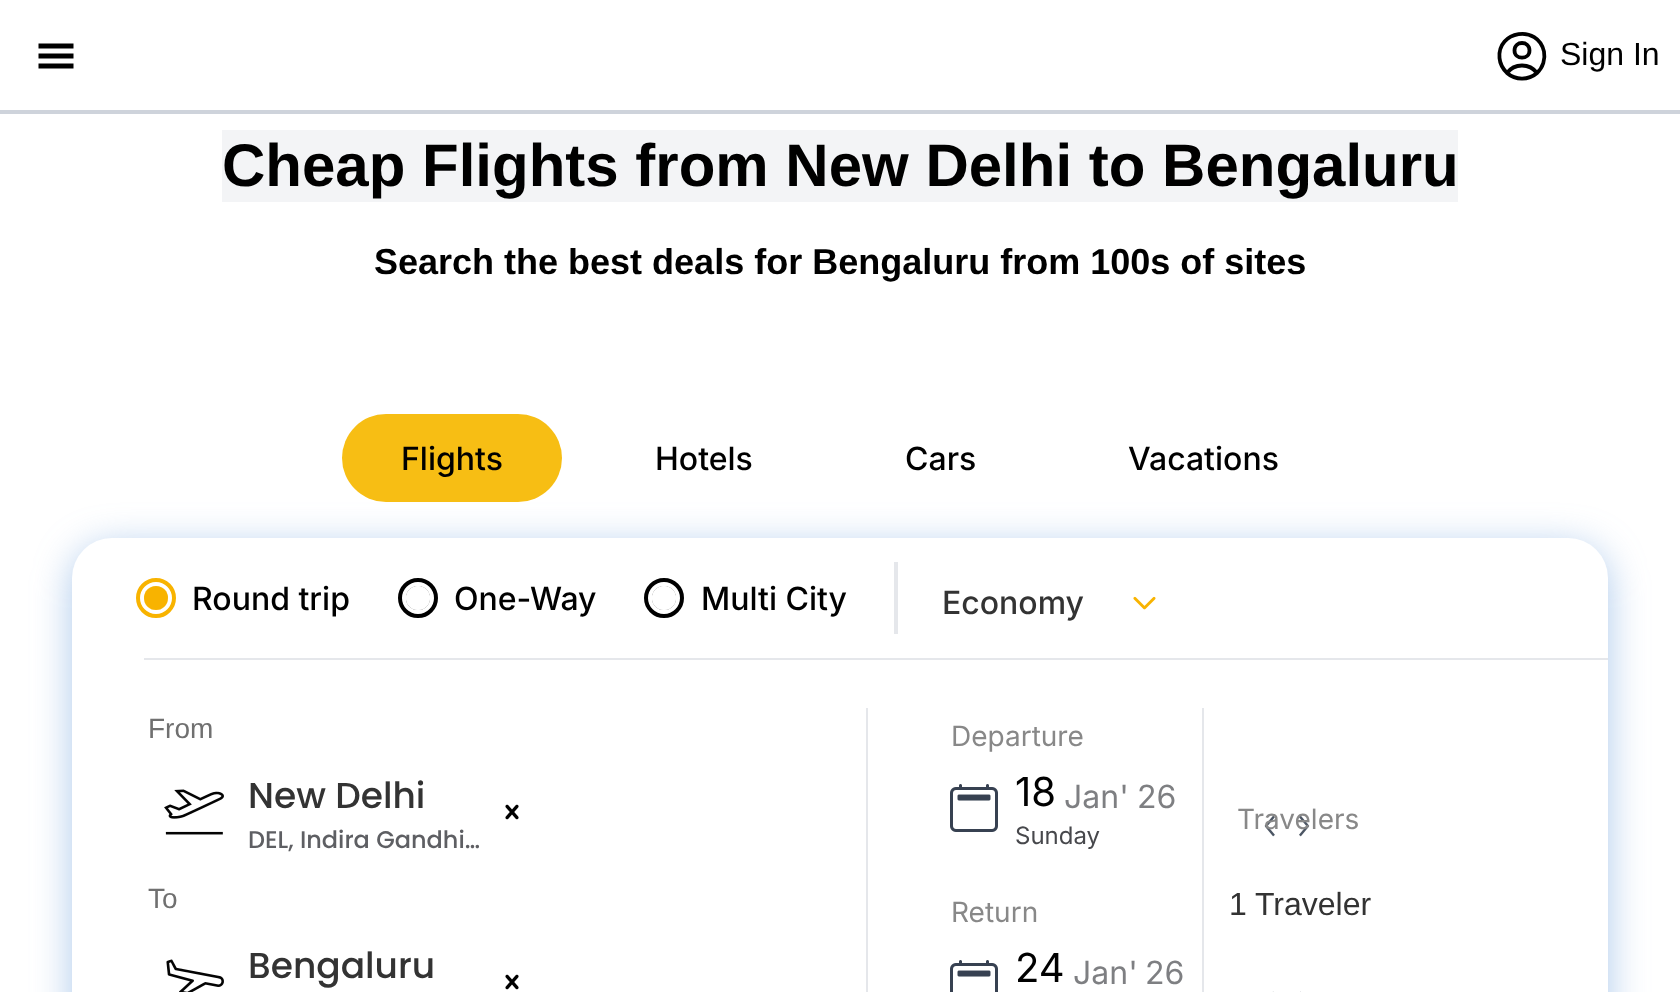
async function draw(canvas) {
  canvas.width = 1680
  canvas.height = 992
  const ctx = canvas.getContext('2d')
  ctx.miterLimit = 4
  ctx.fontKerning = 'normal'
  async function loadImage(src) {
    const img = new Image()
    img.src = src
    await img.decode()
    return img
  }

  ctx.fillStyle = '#fff'
  ctx.fillRect(0, 0, 1680, 992)
  ctx.fillStyle = '#ced3db'
  ctx.fillRect(0, 110, 1680, 4)
  ctx.fillStyle = '#000'
  ctx.beginPath()
  ctx.moveTo(38.5, 43.5)
  ctx.lineTo(38.5, 48.5)
  ctx.lineTo(73.5, 48.5)
  ctx.lineTo(73.5, 43.5)
  ctx.closePath()
  ctx.moveTo(38.5, 53.5)
  ctx.lineTo(38.5, 58.5)
  ctx.lineTo(73.5, 58.5)
  ctx.lineTo(73.5, 53.5)
  ctx.closePath()
  ctx.moveTo(38.5, 63.5)
  ctx.lineTo(38.5, 68.5)
  ctx.lineTo(73.5, 68.5)
  ctx.lineTo(73.5, 63.5)
  ctx.closePath()
  ctx.fill()
  ctx.beginPath()
  ctx.moveTo(1537, 73)
  ctx.bezierCurveTo(1529.5, 63, 1514.5, 63, 1507, 73)
  ctx.moveTo(1537, 73)
  ctx.bezierCurveTo(1543, 67.5, 1545.5, 59, 1544, 51.5)
  ctx.bezierCurveTo(1538, 24, 1497, 30.5, 1499.5, 58)
  ctx.bezierCurveTo(1500, 63.5, 1503, 69, 1507, 73)
  ctx.moveTo(1537, 73)
  ctx.bezierCurveTo(1528.5, 80.5, 1515.5, 80.5, 1507, 73)
  ctx.moveTo(1529.5, 50.5)
  ctx.bezierCurveTo(1529.5, 60, 1514.5, 60, 1514.5, 50.5)
  ctx.bezierCurveTo(1514.5, 40.5, 1529.5, 40.5, 1529.5, 50.5)
  ctx.closePath()
  ctx.strokeStyle = '#000'
  ctx.lineWidth = 3.8
  ctx.lineCap = 'round'
  ctx.lineJoin = 'round'
  ctx.stroke()
  ctx.font = '32px Liberation Sans'
  ctx.fillText('Sign In', 1560, 65)
  ctx.fillStyle = '#f3f4f6'
  ctx.fillRect(222, 130, 1236, 72)
  ctx.font = 'bold 60px Liberation Sans'
  ctx.fillStyle = '#000'
  ctx.fillText('Cheap Flights from New Delhi to Bengaluru', 222, 186)
  ctx.font = 'bold 36px Liberation Sans'
  ctx.fillText('Search the best deals for Bengaluru from 100s of sites', 374, 274)
  ctx.fillStyle = '#f7be14'
  ctx.beginPath()
  ctx.roundRect(342, 414, 220, 88, 44)
  ctx.fill()
  ctx.font = '500 32px Inter'
  ctx.fillStyle = '#000'
  ctx.fillText('Flights', 401, 470)
  ctx.fillText('Hotels', 655, 470)
  ctx.fillText('Cars', 905, 470)
  ctx.fillText('Vacations', 1128, 470)
  ctx.fillStyle = '#5994d980'
  ctx.filter = 'blur(19px)'
  ctx.beginPath()
  ctx.roundRect(72, 546, 1536, 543, 40)
  ctx.fill()
  ctx.filter = 'none'
  ctx.fillStyle = '#fff'
  ctx.beginPath()
  ctx.roundRect(72, 538, 1536, 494, 40)
  ctx.fill()
  ctx.beginPath()
  ctx.arc(156, 598, 16, 0, 2 * Math.PI)
  ctx.strokeStyle = '#f8b300'
  ctx.lineWidth = 8
  ctx.stroke()
  ctx.beginPath()
  ctx.arc(156, 598, 14, 0, 2 * Math.PI)
  ctx.strokeStyle = '#fff'
  ctx.lineWidth = 4
  ctx.stroke()
  ctx.fillStyle = '#f8b300'
  ctx.beginPath()
  ctx.arc(156, 598, 12, 0, 2 * Math.PI)
  ctx.fill()
  ctx.fillStyle = '#000'
  ctx.fillText('Round trip', 192, 610)
  ctx.beginPath()
  ctx.arc(418, 598, 16, 0, 2 * Math.PI)
  ctx.strokeStyle = '#000'
  ctx.lineWidth = 8
  ctx.stroke()
  ctx.beginPath()
  ctx.arc(418, 598, 14, 0, 2 * Math.PI)
  ctx.strokeStyle = '#fff'
  ctx.lineWidth = 4
  ctx.stroke()
  ctx.fillStyle = '#fff'
  ctx.beginPath()
  ctx.arc(418, 598, 12, 0, 2 * Math.PI)
  ctx.fill()
  ctx.fillStyle = '#000'
  ctx.fillText('One-Way', 454, 610)
  ctx.beginPath()
  ctx.arc(664, 598, 16, 0, 2 * Math.PI)
  ctx.strokeStyle = '#000'
  ctx.lineWidth = 8
  ctx.stroke()
  ctx.beginPath()
  ctx.arc(664, 598, 14, 0, 2 * Math.PI)
  ctx.strokeStyle = '#fff'
  ctx.lineWidth = 4
  ctx.stroke()
  ctx.fillStyle = '#fff'
  ctx.beginPath()
  ctx.arc(664, 598, 12, 0, 2 * Math.PI)
  ctx.fill()
  ctx.fillStyle = '#000'
  ctx.fillText('Multi City', 701, 610)
  ctx.fillStyle = '#e5e7eb'
  ctx.fillRect(894, 562, 4, 72)
  ctx.fillStyle = '#333'
  ctx.fillText('Economy', 942, 614)
  ctx.drawImage(await loadImage('image0.png'), 1133, 596, 23, 14)
  ctx.fillStyle = '#e5e7eb'
  ctx.fillRect(144, 658, 1464, 2)
  ctx.font = '28px Liberation Sans'
  ctx.fillStyle = '#707070'
  ctx.fillText('From', 148, 738)
  ctx.drawImage(await loadImage('image1.png'), 164, 789, 60, 46)
  ctx.font = '500 36px Poppins'
  ctx.fillStyle = '#333'
  ctx.fillText('New Delhi', 248, 808)
  ctx.font = '500 24px Poppins'
  ctx.fillStyle = '#5e5f63'
  ctx.fillText('DEL, Indira Gandhi…', 248, 848)
  ctx.drawImage(await loadImage('image2.png'), 505, 804, 14, 16)
  ctx.font = '28px Liberation Sans'
  ctx.fillStyle = '#707070'
  ctx.fillText('To', 148, 908)
  ctx.drawImage(await loadImage('image3.png'), 166, 959, 58, 33)
  ctx.font = '500 36px Poppins'
  ctx.fillStyle = '#333'
  ctx.fillText('Bengaluru', 248, 978)
  ctx.drawImage(await loadImage('image2.png'), 505, 974, 14, 16)
  ctx.fillStyle = '#e5e7eb'
  ctx.fillRect(866, 708, 2, 284)
  ctx.fillRect(1202, 708, 2, 284)
  ctx.font = '28px Inter'
  ctx.fillStyle = '#888'
  ctx.fillText('Departure', 951, 746)
  ctx.drawImage(await loadImage('image4.png'), 950, 784, 48, 48)
  ctx.font = '40px Inter'
  ctx.fillStyle = '#000'
  ctx.fillText('18', 1015, 806)
  ctx.font = '32px Inter'
  ctx.fillStyle = '#7e7f82'
  ctx.fillText('Jan\'', 1064, 808)
  ctx.fillText('26', 1137, 808)
  ctx.font = '24px Inter'
  ctx.fillStyle = '#47484c'
  ctx.fillText('Sunday', 1015, 844)
  ctx.drawImage(await loadImage('image5.png'), 1264, 815, 11, 22)
  ctx.drawImage(await loadImage('image6.png'), 1299, 815, 11, 22)
  ctx.font = '28px Inter'
  ctx.fillStyle = '#888'
  ctx.fillText('Return', 951, 922)
  ctx.drawImage(await loadImage('image7.png'), 950, 960, 48, 32)
  ctx.font = '40px Inter'
  ctx.fillStyle = '#000'
  ctx.fillText('24', 1015, 982)
  ctx.font = '32px Inter'
  ctx.fillStyle = '#7e7f82'
  ctx.fillText('Jan\'', 1073, 984)
  ctx.fillText('26', 1145, 984)
  ctx.drawImage(await loadImage('image8.png'), 1272, 991, 2, 1)
  ctx.fillStyle = '#e8e9eb'
  ctx.fillRect(1300, 991, 1, 1)
  ctx.font = '28px Inter'
  ctx.fillStyle = '#888'
  ctx.fillText('Travelers', 1237, 829)
  ctx.font = '32px Liberation Sans'
  ctx.fillStyle = '#333'
  ctx.fillText('1', 1229, 915)
  ctx.fillText('Traveler', 1255, 915)
}

draw(document.querySelector('canvas'))
